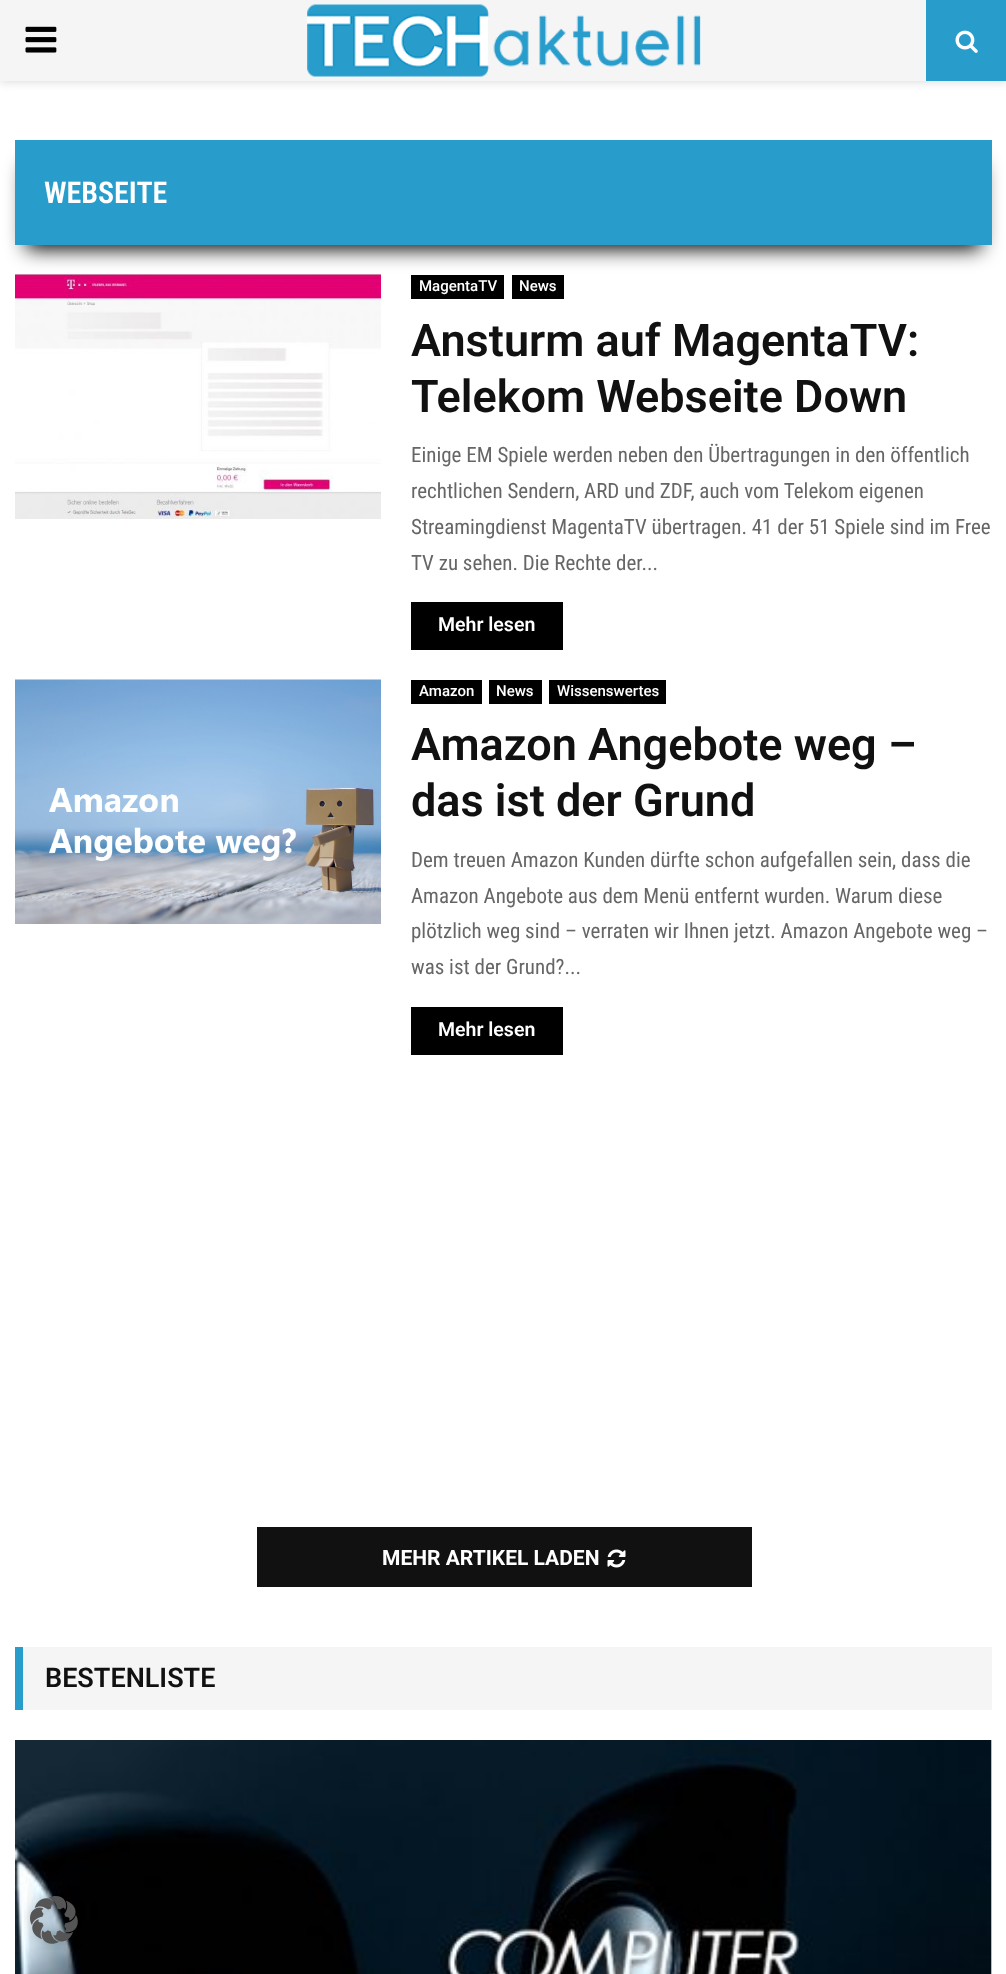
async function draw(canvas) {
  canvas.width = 1006
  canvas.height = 1974
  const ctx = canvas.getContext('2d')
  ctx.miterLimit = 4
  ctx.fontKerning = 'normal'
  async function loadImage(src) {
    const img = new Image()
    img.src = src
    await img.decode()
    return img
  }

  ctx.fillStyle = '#fff'
  ctx.fillRect(0, 0, 1006, 1974)
  ctx.fillStyle = '#bebebe75'
  ctx.filter = 'blur(4px)'
  ctx.beginPath()
  ctx.rect(0, 2, 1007, 81)
  ctx.fill()
  ctx.filter = 'none'
  ctx.fillStyle = '#f5f5f5'
  ctx.fillRect(0, 0, 926, 81)
  ctx.drawImage(await loadImage('image0.png'), 25, 26, 32, 27)
  ctx.drawImage(await loadImage('image1.png'), 307, 4, 394, 73)
  ctx.fillStyle = '#289dcc'
  ctx.fillRect(926, 0, 80, 81)
  ctx.drawImage(await loadImage('image2.png'), 955, 30, 23, 23)
  ctx.fillStyle = '#000'
  ctx.filter = 'blur(10px)'
  ctx.beginPath()
  ctx.rect(26, 165, 955, 84)
  ctx.fill()
  ctx.filter = 'none'
  ctx.fillStyle = '#289dcc'
  ctx.fillRect(15, 140, 977, 105)
  ctx.font = '600 30px Roboto Condensed'
  ctx.fillStyle = '#fff'
  ctx.fillText('WEBSEITE', 44, 203)
  ctx.drawImage(await loadImage('image3.png'), 15, 274, 366, 245)
  ctx.fillStyle = '#000'
  ctx.fillRect(411, 275, 93, 24)
  ctx.font = '500 15px Roboto'
  ctx.fillStyle = '#fff'
  ctx.fillText('MagentaTV', 419, 291)
  ctx.fillStyle = '#000'
  ctx.fillRect(512, 275, 52, 24)
  ctx.fillStyle = '#fff'
  ctx.fillText('News', 519, 291)
  ctx.font = '600 45px Roboto'
  ctx.fillStyle = '#111'
  ctx.fillText('Ansturm auf MagentaTV:', 411, 356)
  ctx.fillText('Telekom Webseite Down', 411, 412)
  ctx.font = '21px Roboto Condensed'
  ctx.fillStyle = '#666'
  ctx.fillText('Einige EM Spiele werden neben den Übertragungen in den öffentlich', 411, 462)
  ctx.fillText('rechtlichen Sendern, ARD und ZDF, auch vom Telekom eigenen', 411, 498)
  ctx.fillText('Streamingdienst MagentaTV übertragen. 41 der 51 Spiele sind im Free', 411, 534)
  ctx.fillText('TV zu sehen. Die Rechte der...', 411, 570)
  ctx.fillStyle = '#000'
  ctx.fillRect(411, 602, 152, 48)
  ctx.font = '600 19.5px Roboto'
  ctx.fillStyle = '#fff'
  ctx.fillText('Mehr lesen', 438, 631)
  ctx.drawImage(await loadImage('image4.png'), 15, 679, 366, 245)
  ctx.fillStyle = '#000'
  ctx.fillRect(411, 680, 71, 24)
  ctx.font = '500 15px Roboto'
  ctx.fillStyle = '#fff'
  ctx.fillText('Amazon', 419, 696)
  ctx.fillStyle = '#000'
  ctx.fillRect(489, 680, 53, 24)
  ctx.fillStyle = '#fff'
  ctx.fillText('News', 496, 696)
  ctx.fillStyle = '#000'
  ctx.fillRect(549, 680, 117, 24)
  ctx.fillStyle = '#fff'
  ctx.fillText('Wissenswertes', 557, 696)
  ctx.font = '600 45px Roboto'
  ctx.fillStyle = '#111'
  ctx.fillText('Amazon Angebote weg –', 411, 760)
  ctx.fillText('das ist der Grund', 411, 816)
  ctx.font = '21px Roboto Condensed'
  ctx.fillStyle = '#666'
  ctx.fillText('Dem treuen Amazon Kunden dürfte schon aufgefallen sein, dass die', 411, 867)
  ctx.fillText('Amazon Angebote aus dem Menü entfernt wurden. Warum diese', 411, 903)
  ctx.fillText('plötzlich weg sind – verraten wir Ihnen jetzt. Amazon Angebote weg –', 411, 938)
  ctx.fillText('was ist der Grund?...', 411, 974)
  ctx.fillStyle = '#000'
  ctx.fillRect(411, 1007, 152, 48)
  ctx.font = '600 19.5px Roboto'
  ctx.fillStyle = '#fff'
  ctx.fillText('Mehr lesen', 438, 1036)
  ctx.fillStyle = '#111'
  ctx.fillRect(257, 1527, 495, 60)
  ctx.font = 'bold 21px Roboto'
  ctx.fillStyle = '#fff'
  ctx.fillText('MEHR ARTIKEL LADEN', 382, 1565)
  ctx.drawImage(await loadImage('image5.png'), 607, 1549, 19, 19)
  ctx.fillStyle = '#f5f5f5'
  ctx.fillRect(23, 1647, 969, 63)
  ctx.fillStyle = '#289dcc'
  ctx.fillRect(15, 1647, 8, 63)
  ctx.font = '600 27px Roboto'
  ctx.fillStyle = '#111'
  ctx.fillText('BESTENLISTE', 45, 1687)
  ctx.fillStyle = '#f5f5f5'
  ctx.fillRect(991, 1740, 1, 234)
  ctx.drawImage(await loadImage('image6.png'), 15, 1740, 977, 234)
  ctx.drawImage(await loadImage('image7.png'), 24, 1892, 54, 58)
}

draw(document.querySelector('canvas'))
